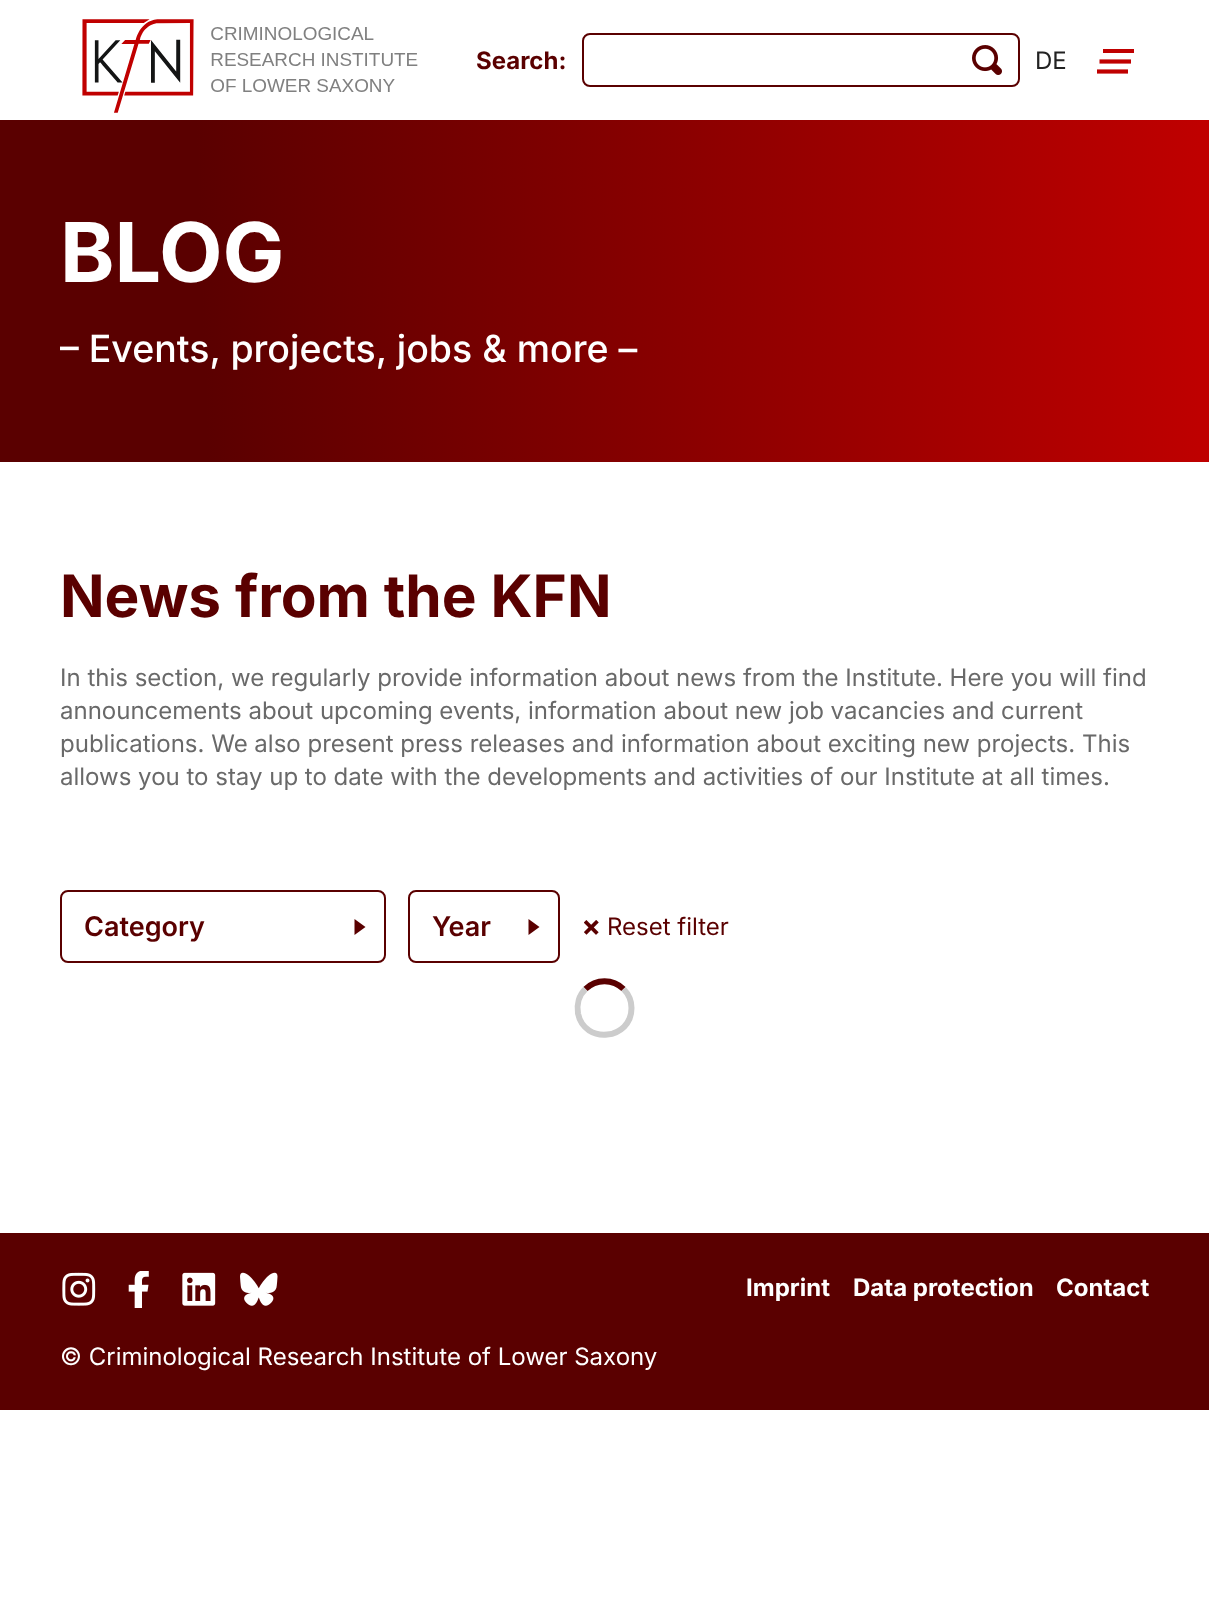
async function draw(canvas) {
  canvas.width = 1209
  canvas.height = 1606
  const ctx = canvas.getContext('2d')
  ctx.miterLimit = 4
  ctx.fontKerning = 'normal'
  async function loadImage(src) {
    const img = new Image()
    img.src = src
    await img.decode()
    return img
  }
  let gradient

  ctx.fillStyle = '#fff'
  ctx.fillRect(0, 0, 1209, 1606)
  ctx.drawImage(await loadImage('image0.png'), 82, 19, 336, 94)
  ctx.font = 'bold 24px Inter'
  ctx.fillStyle = '#5a0000'
  ctx.fillText('Search:', 476, 69)
  ctx.beginPath()
  ctx.roundRect(583, 34, 436, 52, 7)
  ctx.strokeStyle = '#5a0000'
  ctx.lineWidth = 2
  ctx.stroke()
  ctx.drawImage(await loadImage('image1.png'), 972, 45, 30, 30)
  ctx.font = '24px Inter'
  ctx.fillStyle = '#222'
  ctx.fillText('DE', 1035, 69)
  ctx.fillStyle = '#c00000'
  ctx.fillRect(1103, 49, 31, 4)
  ctx.beginPath()
  ctx.moveTo(1099.5, 61.5)
  ctx.lineTo(1131, 61.5)
  ctx.strokeStyle = '#c00000'
  ctx.lineWidth = 4.2
  ctx.stroke()
  ctx.save()
  ctx.beginPath()
  ctx.rect(1097, 42, 37, 38)
  ctx.clip()
  ctx.beginPath()
  ctx.moveTo(1096.5, 71.5)
  ctx.lineTo(1128, 71.5)
  ctx.stroke()
  ctx.restore()
  gradient = ctx.createLinearGradient(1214, 270, -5.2, 312)
  gradient.addColorStop(0, '#c00000')
  gradient.addColorStop(0.83, '#5a0000')
  ctx.fillStyle = gradient
  ctx.fillRect(0, 120, 1209, 342)
  ctx.font = 'bold 82.5px Inter'
  ctx.fillStyle = '#fff'
  ctx.fillText('BLOG', 60, 282)
  ctx.font = '500 37.5px Inter'
  ctx.fillText('– Events, projects, jobs & more –', 60, 362)
  ctx.font = 'bold 58.5px Inter'
  ctx.fillStyle = '#5a0000'
  ctx.fillText('News from the KFN', 60, 617)
  ctx.font = '24px Inter'
  ctx.fillStyle = '#696969'
  ctx.fillText('In this section, we regularly provide information about news from the Institute. Here you will find', 60, 686)
  ctx.fillText('announcements about upcoming events, information about new job vacancies and current', 60, 719)
  ctx.fillText('publications. We also present press releases and information about exciting new projects. This', 60, 752)
  ctx.fillText('allows you to stay up to date with the developments and activities of our Institute at all times.', 60, 785)
  ctx.fillStyle = '#5a0000'
  ctx.beginPath()
  ctx.moveTo(365.5, 927)
  ctx.lineTo(354.5, 935)
  ctx.lineTo(354.5, 919)
  ctx.closePath()
  ctx.fill()
  ctx.beginPath()
  ctx.roundRect(61, 891, 324, 71, 7)
  ctx.strokeStyle = '#5a0000'
  ctx.lineWidth = 2
  ctx.stroke()
  ctx.font = '600 27px Inter'
  ctx.fillText('Category', 84, 936)
  ctx.beginPath()
  ctx.moveTo(539.5, 927)
  ctx.lineTo(528.5, 935)
  ctx.lineTo(528.5, 919)
  ctx.closePath()
  ctx.fill()
  ctx.beginPath()
  ctx.roundRect(409, 891, 150, 71, 7)
  ctx.stroke()
  ctx.fillText('Year', 432, 936)
  ctx.drawImage(await loadImage('image2.png'), 584, 920, 15, 15)
  ctx.font = '24px Inter'
  ctx.fillText('Reset filter', 607, 935)
  ctx.beginPath()
  ctx.moveTo(585.5, 989)
  ctx.bezierCurveTo(596, 978.5, 613, 978.5, 623.5, 989)
  ctx.lineWidth = 6
  ctx.stroke()
  ctx.beginPath()
  ctx.moveTo(623.5, 989)
  ctx.bezierCurveTo(628.5, 994, 631.5, 1001, 631.5, 1008)
  ctx.bezierCurveTo(631.5, 1040, 584.5, 1045, 578, 1013.5)
  ctx.bezierCurveTo(576.5, 1004.5, 579, 995, 585.5, 989)
  ctx.strokeStyle = '#ccc'
  ctx.stroke()
  ctx.fillRect(0, 1233, 1209, 177)
  ctx.drawImage(await loadImage('image3.png'), 62, 1272, 34, 34)
  ctx.drawImage(await loadImage('image4.png'), 128, 1271, 21, 37)
  ctx.drawImage(await loadImage('image5.png'), 182, 1272, 34, 34)
  ctx.drawImage(await loadImage('image6.png'), 240, 1272, 38, 34)
  ctx.font = 'bold 24px Inter'
  ctx.fillStyle = '#fff'
  ctx.fillText('Imprint', 746, 1296)
  ctx.fillText('Data protection', 853, 1296)
  ctx.fillText('Contact', 1056, 1296)
  ctx.font = '24px Inter'
  ctx.fillText('© Criminological Research Institute of Lower Saxony', 60, 1365)
}

draw(document.querySelector('canvas'))
